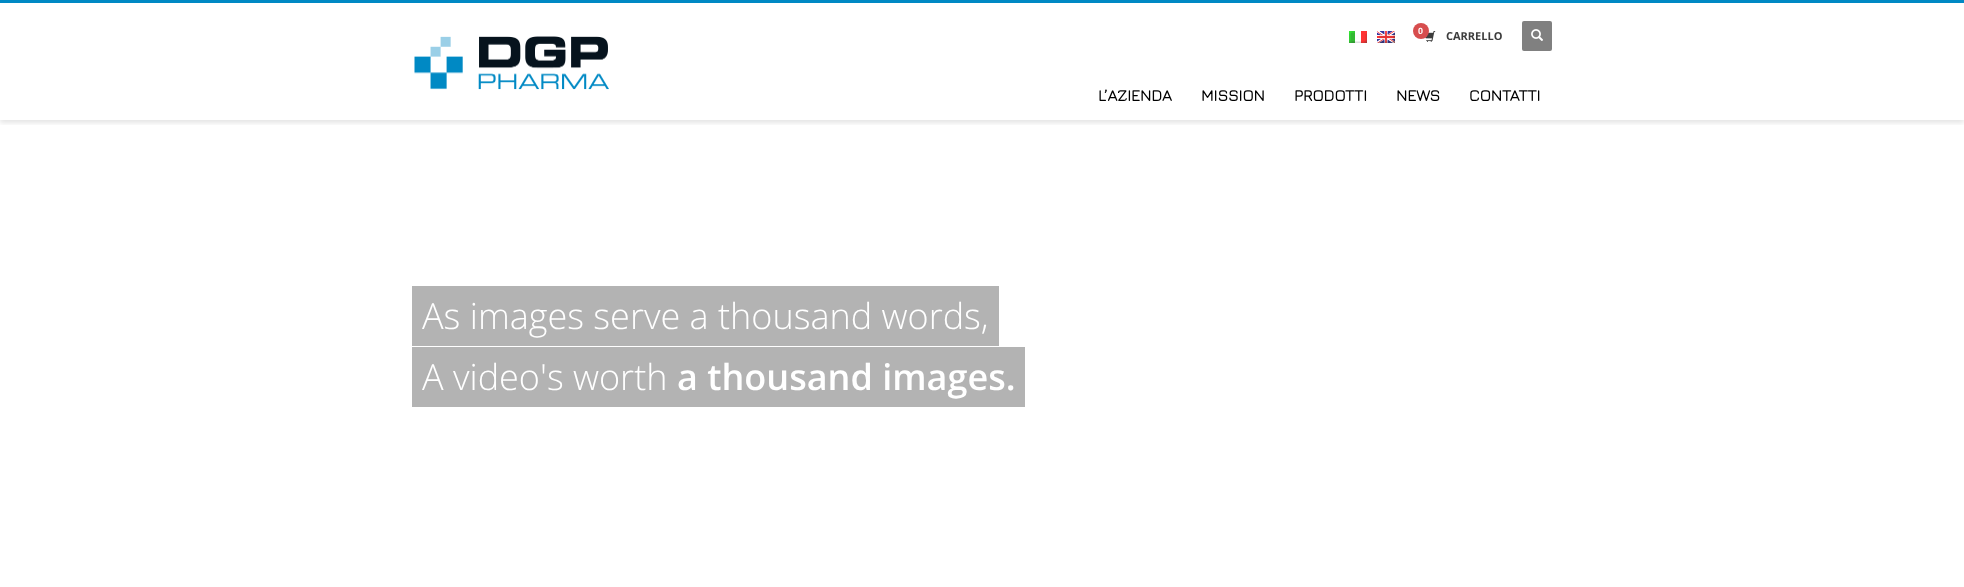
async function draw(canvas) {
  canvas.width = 1964
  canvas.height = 587
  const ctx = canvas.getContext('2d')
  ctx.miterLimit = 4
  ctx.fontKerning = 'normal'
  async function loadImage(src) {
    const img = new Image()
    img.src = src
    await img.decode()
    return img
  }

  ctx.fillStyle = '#fff'
  ctx.fillRect(0, 0, 1964, 587)
  ctx.save()
  ctx.beginPath()
  ctx.rect(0, 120, 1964, 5)
  ctx.clip()
  ctx.fillStyle = '#0000001a'
  ctx.filter = 'blur(2.5px)'
  ctx.beginPath()
  ctx.rect(0, 3, 1964, 120)
  ctx.fill()
  ctx.filter = 'none'
  ctx.restore()
  ctx.fillStyle = '#0089c4'
  ctx.fillRect(0, 0, 1964, 3)
  ctx.drawImage(await loadImage('image0.png'), 414, 36, 195, 54)
  ctx.drawImage(await loadImage('image1.png'), 1349, 31, 18, 12)
  ctx.drawImage(await loadImage('image2.png'), 1377, 31, 18, 12)
  ctx.drawImage(await loadImage('image3.png'), 1425, 31, 11, 11)
  ctx.fillStyle = '#d74d4e'
  ctx.beginPath()
  ctx.arc(1421, 31, 8, 0, 2 * Math.PI)
  ctx.fill()
  ctx.font = 'bold 9px Liberation Sans'
  ctx.fillStyle = '#fff'
  ctx.fillText('0', 1418, 34)
  ctx.font = 'bold 11px Open Sans'
  ctx.fillStyle = '#3d3d3d'
  ctx.fillText('CARRELLO', 1446, 40)
  ctx.fillStyle = '#808080'
  ctx.beginPath()
  ctx.roundRect(1522, 21, 30, 30, 2)
  ctx.fill()
  ctx.drawImage(await loadImage('image4.png'), 1531, 29, 12, 12)
  ctx.font = 'bold 16px Jura'
  ctx.fillStyle = '#000'
  ctx.fillText('L’AZIENDA', 1098, 101)
  ctx.fillText('MISSION', 1201, 101)
  ctx.fillText('PRODOTTI', 1294, 101)
  ctx.fillText('NEWS', 1396, 101)
  ctx.fillText('CONTATTI', 1469, 101)
  ctx.fillStyle = '#b3b3b3'
  ctx.fillRect(412, 286, 587, 60)
  ctx.font = '300 36px Open Sans'
  ctx.fillStyle = '#fff'
  ctx.fillText('As images serve a thousand words,', 422, 329)
  ctx.fillStyle = '#b3b3b3'
  ctx.fillRect(412, 347, 613, 60)
  ctx.fillStyle = '#fff'
  ctx.fillText('A video\'s worth', 422, 390)
  ctx.font = '600 36px Open Sans'
  ctx.fillText('a thousand images.', 677, 390)
}

draw(document.querySelector('canvas'))
